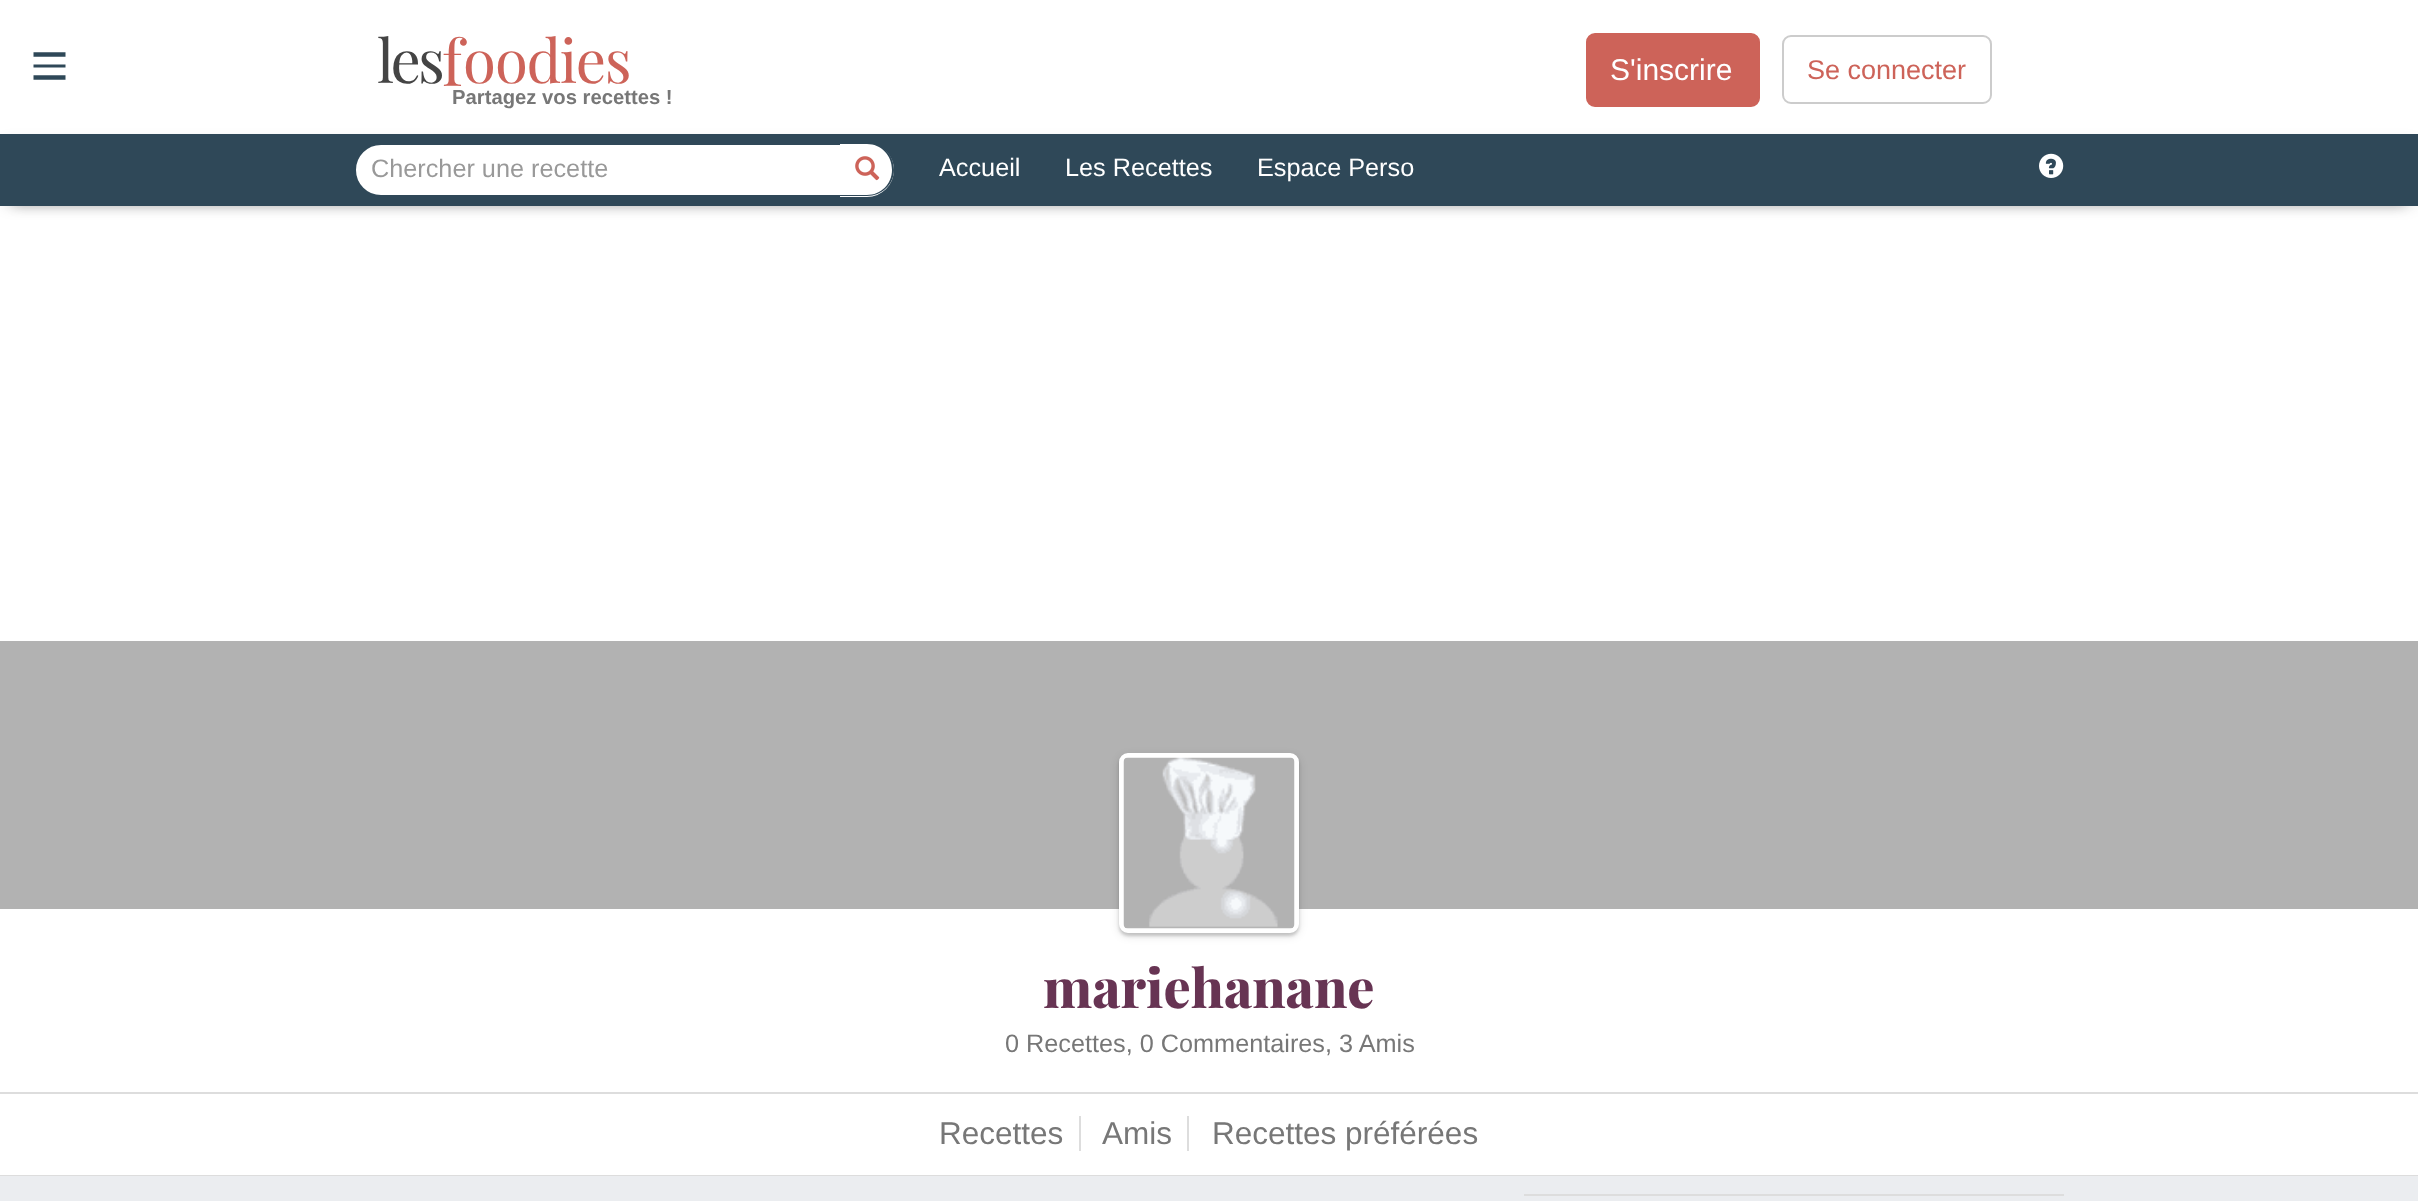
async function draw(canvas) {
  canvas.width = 2418
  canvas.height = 1201
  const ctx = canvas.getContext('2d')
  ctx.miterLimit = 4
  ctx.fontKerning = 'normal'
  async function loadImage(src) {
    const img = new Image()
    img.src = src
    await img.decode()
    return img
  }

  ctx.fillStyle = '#b2b2b2'
  ctx.fillRect(0, 0, 2418, 1201)
  ctx.fillStyle = '#fff'
  ctx.fillRect(0, 0, 2418, 641)
  ctx.beginPath()
  ctx.moveTo(33.5, 54.5)
  ctx.lineTo(65.5, 54.5)
  ctx.strokeStyle = '#2f4858'
  ctx.lineWidth = 4.3
  ctx.stroke()
  ctx.beginPath()
  ctx.moveTo(33.5, 66)
  ctx.lineTo(65.5, 66)
  ctx.lineWidth = 3.2
  ctx.stroke()
  ctx.beginPath()
  ctx.moveTo(33.5, 77.5)
  ctx.lineTo(65.5, 77.5)
  ctx.lineWidth = 4.3
  ctx.stroke()
  ctx.letterSpacing = '-3px'
  ctx.font = '60px Playfair Display'
  ctx.fillStyle = '#444'
  ctx.fillText('les', 377, 83)
  ctx.letterSpacing = '-1.5px'
  ctx.font = '63px Playfair Display'
  ctx.fillStyle = '#cd6359'
  ctx.fillText('f', 442, 86)
  ctx.letterSpacing = '-3px'
  ctx.font = '60px Playfair Display'
  ctx.fillText('o', 463, 83)
  ctx.letterSpacing = '-1.5px'
  ctx.fillText('odies', 495, 83)
  ctx.letterSpacing = '0px'
  ctx.font = 'bold 20.25px Liberation Sans'
  ctx.fillStyle = '#777'
  ctx.fillText('Partagez vos recettes !', 452, 104)
  ctx.fillStyle = '#cd6359'
  ctx.beginPath()
  ctx.roundRect(1587, 34, 172, 72, 8)
  ctx.fill()
  ctx.strokeStyle = '#cd6359'
  ctx.lineWidth = 2
  ctx.stroke()
  ctx.font = '30px Liberation Sans'
  ctx.fillStyle = '#fff'
  ctx.fillText('S\'inscrire', 1610, 80)
  ctx.beginPath()
  ctx.roundRect(1783, 36, 208, 67, 8)
  ctx.strokeStyle = '#ccc'
  ctx.stroke()
  ctx.font = '27px Liberation Sans'
  ctx.fillStyle = '#cd6359'
  ctx.fillText('Se connecter', 1807, 79)
  ctx.fillStyle = '#0000003d'
  ctx.filter = 'blur(7.5px)'
  ctx.beginPath()
  ctx.rect(6, 144, 2406, 60)
  ctx.fill()
  ctx.filter = 'none'
  ctx.fillStyle = '#00000029'
  ctx.filter = 'blur(6px)'
  ctx.beginPath()
  ctx.rect(15, 164, 2388, 42)
  ctx.fill()
  ctx.filter = 'none'
  ctx.fillStyle = '#2f4858'
  ctx.fillRect(0, 134, 2418, 72)
  ctx.fillStyle = '#fff'
  ctx.beginPath()
  ctx.roundRect(355, 144, 486, 52, [26, 0, 0, 26])
  ctx.fill()
  ctx.strokeStyle = '#2f4858'
  ctx.stroke()
  ctx.font = '25.25px Liberation Sans'
  ctx.fillStyle = '#999'
  ctx.fillText('Chercher une recette', 371, 177)
  ctx.fillStyle = '#fff'
  ctx.beginPath()
  ctx.roundRect(840, 143, 54, 54, [0, 27, 27, 0])
  ctx.fill()
  ctx.fillStyle = '#2f4858'
  ctx.beginPath()
  ctx.moveTo(840, 142)
  ctx.lineTo(867, 142)
  ctx.bezierCurveTo(882, 142, 894, 155, 894, 170)
  ctx.bezierCurveTo(894, 184, 882, 196, 867, 196)
  ctx.lineTo(840, 196)
  ctx.closePath()
  ctx.moveTo(840, 144)
  ctx.lineTo(867, 144)
  ctx.bezierCurveTo(881, 144, 892, 155, 892, 170)
  ctx.bezierCurveTo(892, 184, 881, 195, 867, 195)
  ctx.lineTo(840, 195)
  ctx.closePath()
  ctx.fill('evenodd')
  ctx.drawImage(await loadImage('image0.png'), 855, 156, 25, 25)
  ctx.fillStyle = '#fff'
  ctx.fillText('Accueil', 939, 176)
  ctx.fillText('Les Recettes', 1065, 176)
  ctx.fillText('Espace Perso', 1257, 176)
  ctx.drawImage(await loadImage('image1.png'), 2039, 153, 25, 25)
  ctx.fillRect(0, 909, 2418, 183)
  ctx.fillStyle = '#0000001f'
  ctx.filter = 'blur(4px)'
  ctx.beginPath()
  ctx.roundRect(1119, 756, 180, 180, 9)
  ctx.fill()
  ctx.filter = 'none'
  ctx.fillStyle = '#00000029'
  ctx.filter = 'blur(1.5px)'
  ctx.beginPath()
  ctx.roundRect(1119, 756, 180, 180, 9)
  ctx.fill()
  ctx.filter = 'none'
  ctx.beginPath()
  ctx.roundRect(1121.5, 755.5, 175, 175, 6.5)
  ctx.strokeStyle = '#fff'
  ctx.lineWidth = 5
  ctx.stroke()
  ctx.drawImage(await loadImage('image2.png'), 1123, 757, 172, 172)
  ctx.font = '800 54px Playfair Display'
  ctx.fillStyle = '#673453'
  ctx.fillText('mariehanane', 1043, 1008)
  ctx.font = '25.25px Liberation Sans'
  ctx.fillStyle = '#777'
  ctx.fillText('0 Recettes, 0 Commentaires, 3 Amis', 1005, 1052)
  ctx.fillStyle = '#fff'
  ctx.fillRect(0, 1094, 2418, 81)
  ctx.fillStyle = '#ddd'
  ctx.fillRect(0, 1092, 2418, 2)
  ctx.fillRect(0, 1175, 2418, 1)
  ctx.font = '31.5px Liberation Sans'
  ctx.fillStyle = '#777'
  ctx.fillText('Recettes', 939, 1144)
  ctx.fillStyle = '#ddd'
  ctx.fillRect(1079, 1116, 2, 35)
  ctx.fillStyle = '#777'
  ctx.fillText('Amis', 1102, 1144)
  ctx.fillStyle = '#ddd'
  ctx.fillRect(1187, 1116, 2, 35)
  ctx.fillStyle = '#777'
  ctx.fillText('Recettes préférées', 1212, 1144)
  ctx.fillStyle = '#ebedf0'
  ctx.fillRect(0, 1176, 2418, 25)
  ctx.fillStyle = '#ddd'
  ctx.fillRect(1524, 1194, 540, 2)
}

draw(document.querySelector('canvas'))
